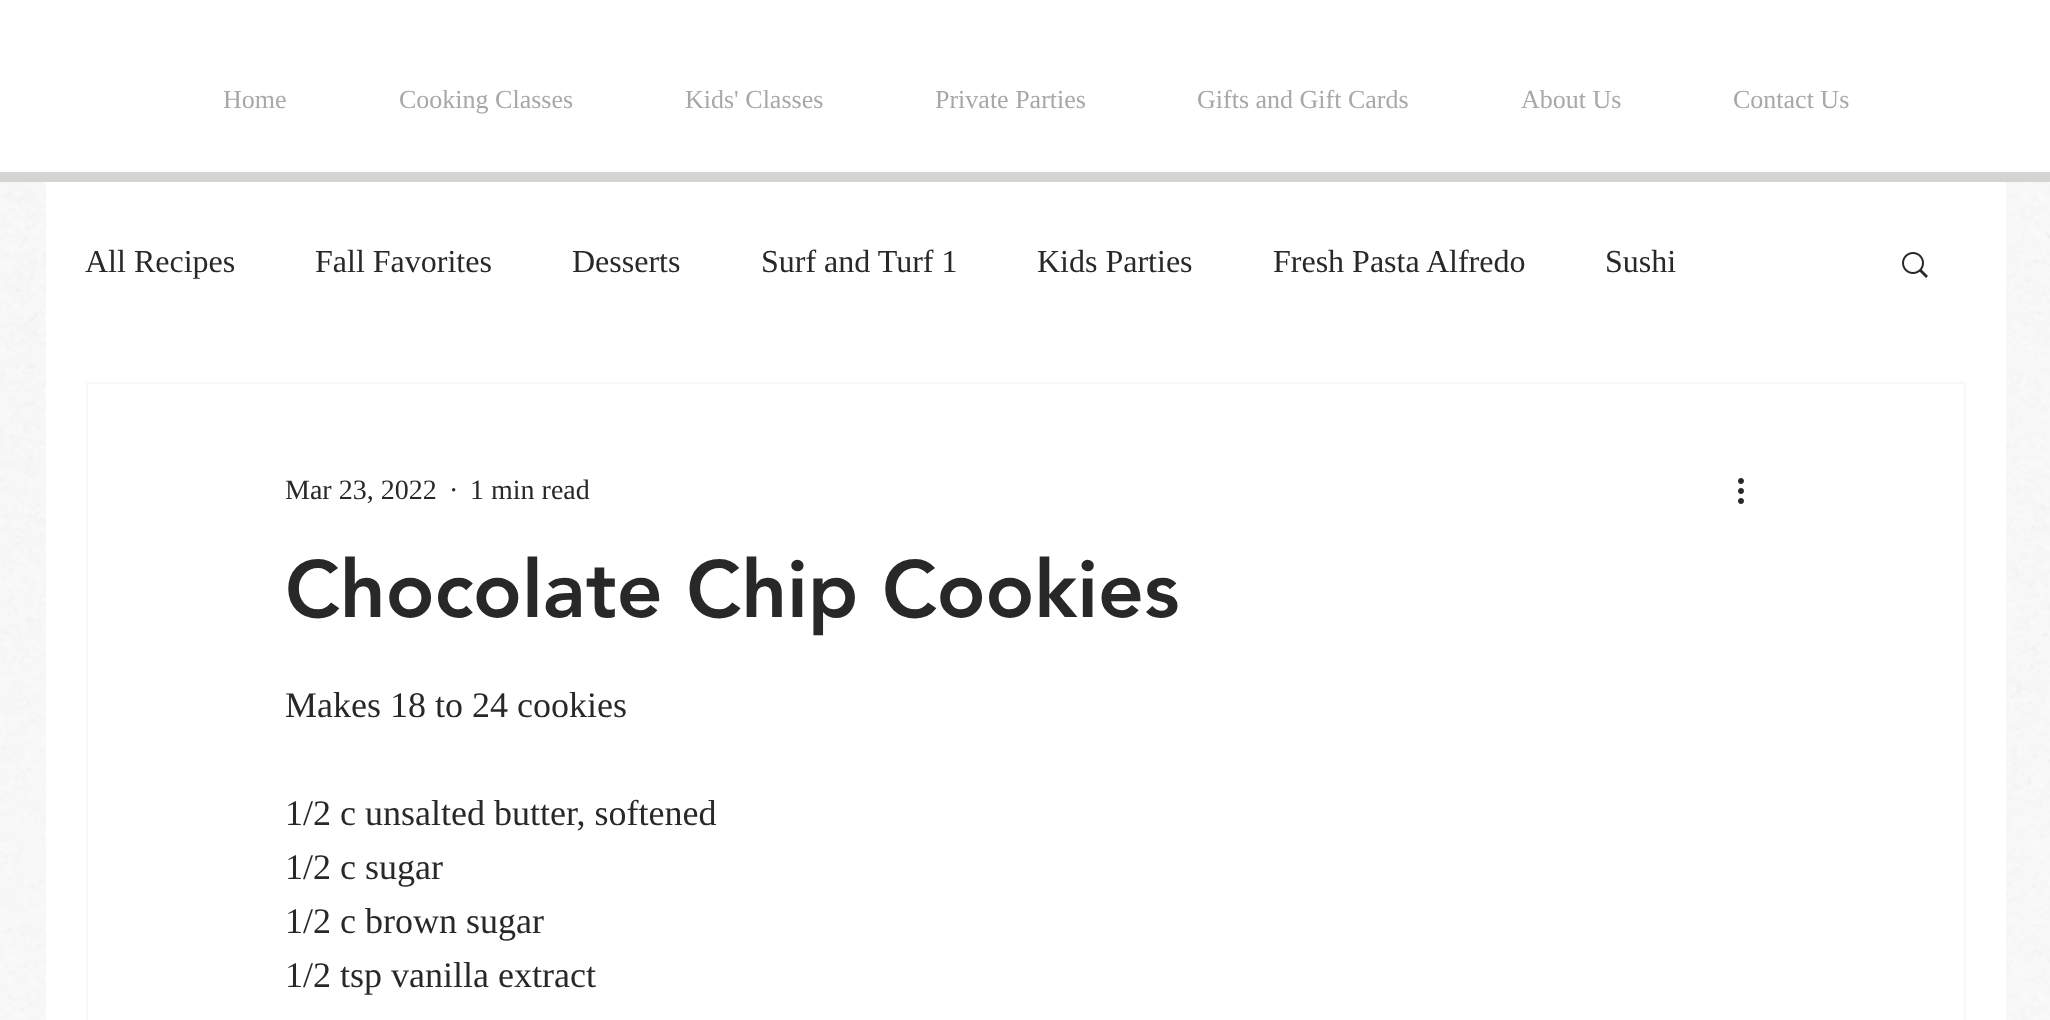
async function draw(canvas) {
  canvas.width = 2050
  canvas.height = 1020
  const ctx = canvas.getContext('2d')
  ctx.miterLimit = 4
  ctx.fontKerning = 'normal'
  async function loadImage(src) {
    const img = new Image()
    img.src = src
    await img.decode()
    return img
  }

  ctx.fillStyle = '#fff'
  ctx.fillRect(0, 0, 2050, 1020)
  ctx.font = '26px Liberation Serif'
  ctx.fillStyle = '#a8a8a7'
  ctx.fillText('Home', 223, 108)
  ctx.fillText('Cooking Classes', 399, 108)
  ctx.fillText('Kids\' Classes', 685, 108)
  ctx.fillText('Private Parties', 935, 108)
  ctx.fillText('Gifts and Gift Cards', 1197, 108)
  ctx.fillText('About Us', 1521, 108)
  ctx.fillText('Contact Us', 1733, 108)
  ctx.fillStyle = '#d4d4d2'
  ctx.fillRect(0, 172, 2050, 10)
  ctx.drawImage(await loadImage('image2.png'), 0, 182, 2050, 838)
  ctx.fillStyle = '#fff'
  ctx.fillRect(46, 182, 1960, 838)
  ctx.font = '32px Liberation Serif'
  ctx.fillStyle = '#282828'
  ctx.fillText('All Recipes', 85, 272)
  ctx.fillText('Fall Favorites', 315, 272)
  ctx.fillText('Desserts', 572, 272)
  ctx.fillText('Surf and Turf 1', 761, 272)
  ctx.fillText('Kids Parties', 1037, 272)
  ctx.fillText('Fresh Pasta Alfredo', 1273, 272)
  ctx.fillText('Sushi', 1605, 272)
  ctx.drawImage(await loadImage('image0.png'), 1902, 252, 26, 26)
  ctx.strokeStyle = '#f8f8f8'
  ctx.lineWidth = 2
  ctx.strokeRect(87, 383, 1878, 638)
  ctx.save()
  ctx.beginPath()
  ctx.rect(286, 468, 150, 42)
  ctx.clip()
  ctx.font = '28px Liberation Serif'
  ctx.fillText('Mar 23, 2022', 285, 499)
  ctx.restore()
  ctx.font = '28px Liberation Serif'
  ctx.fillText('·', 449, 499)
  ctx.fillText('1 min read', 470, 499)
  ctx.drawImage(await loadImage('image1.png'), 1738, 478, 6, 26)
  ctx.font = '900 80px "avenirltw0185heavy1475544"'
  ctx.fillText('Chocolate Chip Cookies', 285, 617)
  ctx.font = '36px Liberation Serif'
  ctx.fillText('Makes 18 to 24 cookies', 285, 717)
  ctx.fillText('1/2 c unsalted butter, softened', 285, 825)
  ctx.fillText('1/2 c sugar', 285, 879)
  ctx.fillText('1/2 c brown sugar', 285, 933)
  ctx.fillText('1/2 tsp vanilla extract', 285, 987)
}

draw(document.querySelector('canvas'))
